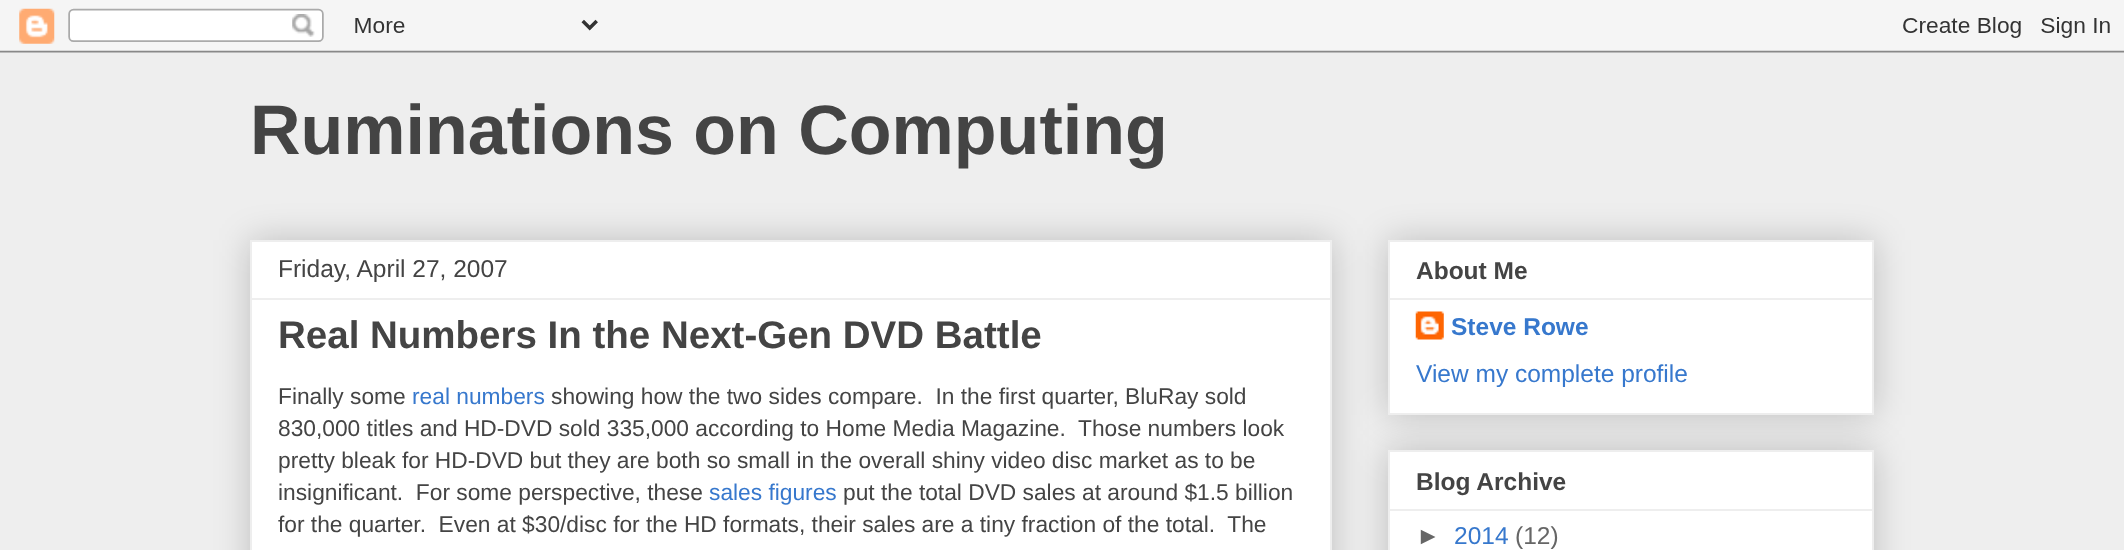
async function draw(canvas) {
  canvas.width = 2124
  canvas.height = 550
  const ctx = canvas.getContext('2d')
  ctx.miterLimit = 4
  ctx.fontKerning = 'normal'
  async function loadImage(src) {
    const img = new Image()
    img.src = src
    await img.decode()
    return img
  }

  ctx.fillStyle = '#eee'
  ctx.fillRect(0, 0, 2124, 550)
  ctx.drawImage(await loadImage('image0.png'), 0, 0, 2124, 53)
  ctx.font = 'bold 70px Liberation Sans'
  ctx.fillStyle = '#444'
  ctx.fillText('Ruminations on Computing', 250, 154)
  ctx.fillStyle = '#00000033'
  ctx.filter = 'blur(17.5px)'
  ctx.beginPath()
  ctx.rect(250, 240, 1082, 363)
  ctx.fill()
  ctx.filter = 'none'
  ctx.fillStyle = '#fff'
  ctx.beginPath()
  ctx.rect(251, 241, 1080, 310)
  ctx.fill()
  ctx.strokeStyle = '#eee'
  ctx.lineWidth = 2
  ctx.stroke()
  ctx.font = '24.5px Liberation Sans'
  ctx.fillStyle = '#444'
  ctx.fillText('Friday, April 27, 2007', 278, 277)
  ctx.fillStyle = '#eee'
  ctx.fillRect(252, 298, 1078, 2)
  ctx.font = 'bold 38.5px Liberation Sans'
  ctx.fillStyle = '#444'
  ctx.fillText('Real Numbers In the Next-Gen DVD Battle', 278, 348)
  ctx.font = '22.75px Liberation Sans'
  ctx.fillText('Finally some', 278, 404)
  ctx.fillStyle = '#3778cd'
  ctx.fillText('real numbers', 412, 404)
  ctx.fillStyle = '#444'
  ctx.fillText('showing how the two sides compare.  In the first quarter, BluRay sold', 551, 404)
  ctx.fillText('830,000 titles and HD-DVD sold 335,000 according to Home Media Magazine.  Those numbers look', 278, 436)
  ctx.fillText('pretty bleak for HD-DVD but they are both so small in the overall shiny video disc market as to be', 278, 468)
  ctx.fillText('insignificant.  For some perspective, these', 278, 500)
  ctx.fillStyle = '#3778cd'
  ctx.fillText('sales figures', 709, 500)
  ctx.fillStyle = '#444'
  ctx.fillText('put the total DVD sales at around $1.5 billion', 843, 500)
  ctx.fillText('for the quarter.  Even at $30/disc for the HD formats, their sales are a tiny fraction of the total.  The', 278, 532)
  ctx.fillStyle = '#00000033'
  ctx.filter = 'blur(17.5px)'
  ctx.beginPath()
  ctx.rect(1388, 240, 486, 175)
  ctx.fill()
  ctx.filter = 'none'
  ctx.fillStyle = '#fff'
  ctx.beginPath()
  ctx.rect(1389, 241, 484, 173)
  ctx.fill()
  ctx.stroke()
  ctx.font = 'bold 24.5px Liberation Sans'
  ctx.fillStyle = '#444'
  ctx.fillText('About Me', 1416, 279)
  ctx.fillStyle = '#eee'
  ctx.fillRect(1390, 298, 483, 2)
  ctx.drawImage(await loadImage('image1.png'), 1415, 311, 29, 29)
  ctx.fillStyle = '#3778cd'
  ctx.fillText('Steve Rowe', 1451, 335)
  ctx.font = '24.5px Liberation Sans'
  ctx.fillText('View my complete profile', 1416, 382)
  ctx.fillStyle = '#00000033'
  ctx.filter = 'blur(17.5px)'
  ctx.beginPath()
  ctx.rect(1388, 450, 486, 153)
  ctx.fill()
  ctx.filter = 'none'
  ctx.fillStyle = '#fff'
  ctx.beginPath()
  ctx.rect(1389, 451, 484, 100)
  ctx.fill()
  ctx.stroke()
  ctx.font = 'bold 24.5px Liberation Sans'
  ctx.fillStyle = '#444'
  ctx.fillText('Blog Archive', 1416, 490)
  ctx.fillStyle = '#eee'
  ctx.fillRect(1390, 509, 483, 2)
  ctx.font = '24.5px Liberation Sans'
  ctx.fillStyle = '#666'
  ctx.fillText('►', 1416, 544)
  ctx.fillStyle = '#3778cd'
  ctx.fillText('2014', 1454, 544)
  ctx.fillStyle = '#666'
  ctx.fillText('(12)', 1515, 544)
}

draw(document.querySelector('canvas'))
